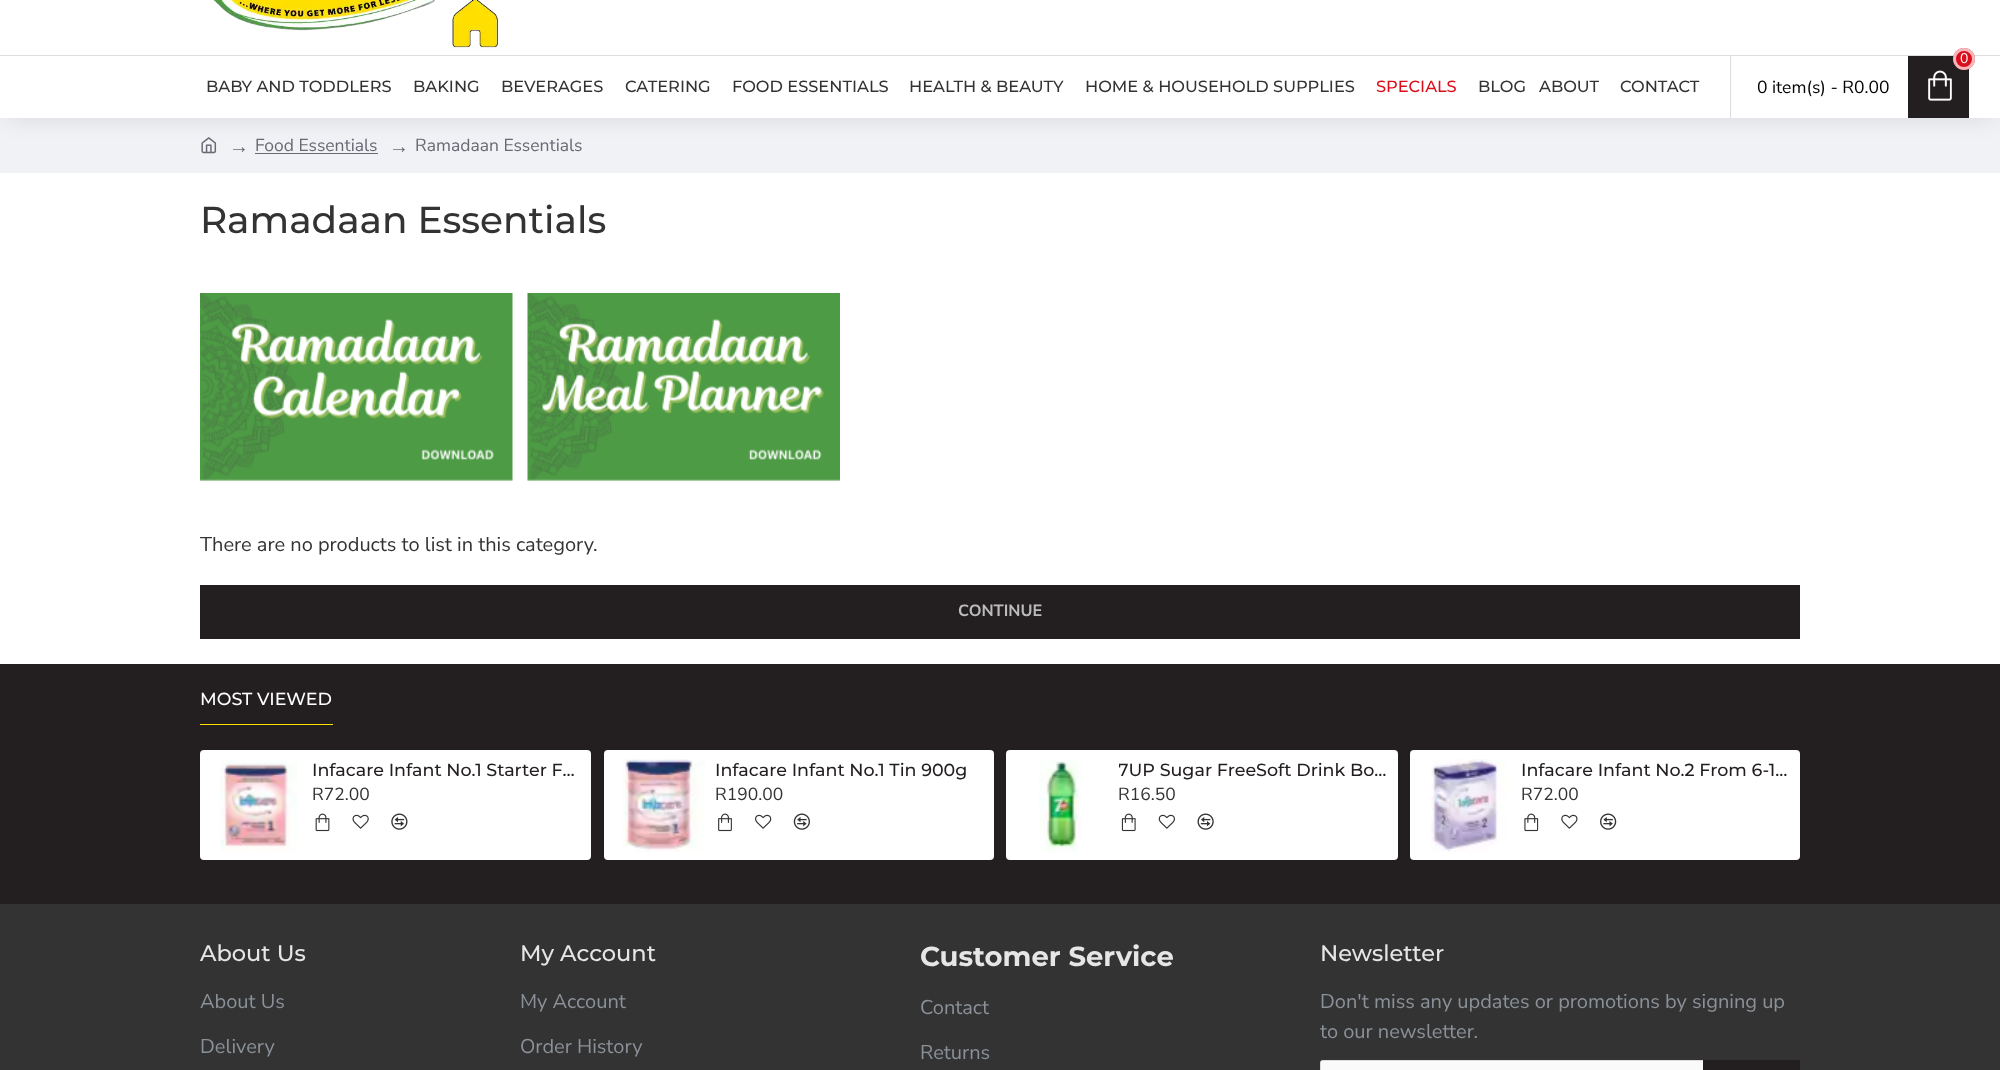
async function draw(canvas) {
  canvas.width = 2000
  canvas.height = 1070
  const ctx = canvas.getContext('2d')
  ctx.miterLimit = 4
  ctx.fontKerning = 'normal'
  async function loadImage(src) {
    const img = new Image()
    img.src = src
    await img.decode()
    return img
  }

  ctx.fillStyle = '#fff'
  ctx.fillRect(0, 0, 2000, 1070)
  ctx.fillStyle = '#f0f2f5'
  ctx.fillRect(0, 118, 2000, 55)
  ctx.drawImage(await loadImage('image2.png'), 201, 137, 16, 17)
  ctx.fillStyle = '#696973'
  ctx.fillRect(255, 153, 123, 1)
  ctx.save()
  ctx.beginPath()
  ctx.moveTo(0, 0)
  ctx.lineTo(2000, 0)
  ctx.lineTo(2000, 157)
  ctx.lineTo(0, 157)
  ctx.closePath()
  ctx.moveTo(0, -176)
  ctx.lineTo(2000, -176)
  ctx.lineTo(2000, 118)
  ctx.lineTo(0, 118)
  ctx.closePath()
  ctx.clip('evenodd')
  ctx.fillStyle = '#0000001a'
  ctx.filter = 'blur(12.5px)'
  ctx.beginPath()
  ctx.rect(6, -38, 1988, 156)
  ctx.fill()
  ctx.filter = 'none'
  ctx.restore()
  ctx.fillStyle = '#ffffffb3'
  ctx.fillRect(8, 117, 1984, 1)
  ctx.drawImage(await loadImage('image0.png'), 213, 0, 285, 48)
  ctx.fillStyle = '#ddd'
  ctx.fillRect(0, 55, 2000, 1)
  ctx.fillRect(1730, 55, 1, 63)
  ctx.fillStyle = '#231f20'
  ctx.fillRect(1908, 56, 61, 62)
  ctx.fillStyle = '#dd0e1c'
  ctx.beginPath()
  ctx.arc(1964, 59, 11, 0, 2 * Math.PI)
  ctx.fill()
  ctx.beginPath()
  ctx.arc(1964, 59, 9.5, 0, 2 * Math.PI)
  ctx.strokeStyle = '#ffffffb3'
  ctx.lineWidth = 3
  ctx.stroke()
  ctx.font = '14px Nunito Sans'
  ctx.fillStyle = '#fff'
  ctx.fillText('0', 1960, 63)
  ctx.font = '17.5px Nunito Sans'
  ctx.fillStyle = '#000'
  ctx.fillText('0 item(s) - R0.00', 1757, 93)
  ctx.drawImage(await loadImage('image1.png'), 1928, 70, 24, 31)
  ctx.font = '500 16.25px Montserrat'
  ctx.fillStyle = '#333'
  ctx.fillText('BABY AND TODDLERS', 206, 92)
  ctx.fillText('BAKING', 413, 92)
  ctx.fillText('BEVERAGES', 501, 92)
  ctx.fillText('CATERING', 625, 92)
  ctx.fillText('FOOD ESSENTIALS', 732, 92)
  ctx.fillText('HEALTH & BEAUTY', 909, 92)
  ctx.fillText('HOME & HOUSEHOLD SUPPLIES', 1085, 92)
  ctx.fillStyle = '#dd0e1c'
  ctx.fillText('SPECIALS', 1376, 92)
  ctx.fillStyle = '#333'
  ctx.fillText('BLOG', 1478, 92)
  ctx.fillText('ABOUT', 1539, 92)
  ctx.fillText('CONTACT', 1620, 92)
  ctx.font = '20px Liberation Serif'
  ctx.fillStyle = '#696973'
  ctx.fillText('→', 229, 153)
  ctx.font = '17.5px Nunito Sans'
  ctx.fillText('Food Essentials', 255, 151)
  ctx.font = '20px Liberation Serif'
  ctx.fillText('→', 389, 153)
  ctx.font = '17.5px Nunito Sans'
  ctx.fillText('Ramadaan Essentials', 415, 151)
  ctx.font = '500 37.5px Montserrat'
  ctx.fillStyle = '#333'
  ctx.fillText('Ramadaan Essentials', 200, 233)
  ctx.drawImage(await loadImage('image3.png'), 200, 293, 313, 188)
  ctx.drawImage(await loadImage('image4.png'), 527, 293, 313, 188)
  ctx.font = '20px Nunito Sans'
  ctx.fillText('There are no products to list in this category.', 200, 551)
  ctx.fillStyle = '#231f20'
  ctx.fillRect(200, 585, 1600, 54)
  ctx.font = 'bold 16.25px Nunito Sans'
  ctx.fillStyle = '#bdbcbc'
  ctx.fillText('CONTINUE', 958, 616)
  ctx.fillStyle = '#231f20'
  ctx.fillRect(0, 664, 2000, 240)
  ctx.fillStyle = '#fd0'
  ctx.fillRect(200, 724, 133, 1)
  ctx.font = '500 17.5px Montserrat'
  ctx.fillStyle = '#fff'
  ctx.fillText('MOST VIEWED', 200, 705)
  ctx.beginPath()
  ctx.roundRect(200, 750, 391, 110, 4)
  ctx.fill()
  ctx.drawImage(await loadImage('image5.png'), 220, 759, 77, 93)
  ctx.fillStyle = '#231f20'
  ctx.fillText('Infacare Infant No.1 Starter F…', 312, 776)
  ctx.font = '17.5px Nunito Sans'
  ctx.fillStyle = '#333'
  ctx.fillText('R72.00', 312, 800)
  ctx.drawImage(await loadImage('image6.png'), 315, 813, 15, 19)
  ctx.drawImage(await loadImage('image7.png'), 352, 814, 17, 15)
  ctx.drawImage(await loadImage('image8.png'), 391, 813, 17, 17)
  ctx.fillStyle = '#fff'
  ctx.beginPath()
  ctx.roundRect(604, 750, 390, 110, 4)
  ctx.fill()
  ctx.drawImage(await loadImage('image9.png'), 622, 759, 83, 93)
  ctx.font = '500 17.5px Montserrat'
  ctx.fillStyle = '#231f20'
  ctx.fillText('Infacare Infant No.1 Tin 900g', 715, 776)
  ctx.font = '17.5px Nunito Sans'
  ctx.fillStyle = '#333'
  ctx.fillText('R190.00', 715, 800)
  ctx.drawImage(await loadImage('image10.png'), 718, 813, 14, 19)
  ctx.drawImage(await loadImage('image11.png'), 755, 814, 17, 15)
  ctx.drawImage(await loadImage('image12.png'), 793, 813, 17, 17)
  ctx.fillStyle = '#fff'
  ctx.beginPath()
  ctx.roundRect(1006, 750, 392, 110, 4)
  ctx.fill()
  ctx.drawImage(await loadImage('image13.png'), 1039, 759, 43, 93)
  ctx.save()
  ctx.beginPath()
  ctx.rect(1119, 759, 270, 22)
  ctx.clip()
  ctx.font = '500 17.5px Montserrat'
  ctx.fillStyle = '#231f20'
  ctx.fillText('7UP Sugar FreeSoft Drink Bo…', 1118, 776)
  ctx.restore()
  ctx.fillStyle = '#333'
  ctx.fillText('R16.50', 1118, 800)
  ctx.drawImage(await loadImage('image14.png'), 1121, 813, 15, 19)
  ctx.drawImage(await loadImage('image15.png'), 1158, 814, 17, 15)
  ctx.drawImage(await loadImage('image16.png'), 1197, 813, 17, 17)
  ctx.fillStyle = '#fff'
  ctx.beginPath()
  ctx.roundRect(1410, 750, 390, 110, 4)
  ctx.fill()
  ctx.drawImage(await loadImage('image17.png'), 1431, 759, 77, 93)
  ctx.font = '500 17.5px Montserrat'
  ctx.fillStyle = '#231f20'
  ctx.fillText('Infacare Infant No.2 From 6-1…', 1521, 776)
  ctx.font = '17.5px Nunito Sans'
  ctx.fillStyle = '#333'
  ctx.fillText('R72.00', 1521, 800)
  ctx.drawImage(await loadImage('image18.png'), 1524, 813, 15, 19)
  ctx.drawImage(await loadImage('image19.png'), 1561, 814, 17, 15)
  ctx.drawImage(await loadImage('image20.png'), 1600, 813, 17, 17)
  ctx.fillRect(0, 904, 2000, 166)
  ctx.font = '500 22.5px Montserrat'
  ctx.fillStyle = '#e6e6e6'
  ctx.fillText('About Us', 200, 961)
  ctx.font = '20px Nunito Sans'
  ctx.fillStyle = '#8b9198'
  ctx.fillText('About Us', 200, 1008)
  ctx.fillText('Delivery', 200, 1053)
  ctx.font = '500 22.5px Montserrat'
  ctx.fillStyle = '#e6e6e6'
  ctx.fillText('My Account', 520, 961)
  ctx.font = '20px Nunito Sans'
  ctx.fillStyle = '#8b9198'
  ctx.fillText('My Account', 520, 1008)
  ctx.fillText('Order History', 520, 1053)
  ctx.font = 'bold 27.5px Montserrat'
  ctx.fillStyle = '#e6e6e6'
  ctx.fillText('Customer Service', 920, 966)
  ctx.font = '20px Nunito Sans'
  ctx.fillStyle = '#8b9198'
  ctx.fillText('Contact', 920, 1014)
  ctx.fillText('Returns', 920, 1059)
  ctx.font = '500 22.5px Montserrat'
  ctx.fillStyle = '#e6e6e6'
  ctx.fillText('Newsletter', 1320, 961)
  ctx.font = '20px Nunito Sans'
  ctx.fillStyle = '#8b9198'
  ctx.fillText('Don\'t miss any updates or promotions by signing up', 1320, 1008)
  ctx.fillText('to our newsletter.', 1320, 1038)
  ctx.fillStyle = '#fafafa'
  ctx.beginPath()
  ctx.roundRect(1320.5, 1060.5, 479, 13, 2)
  ctx.fill()
  ctx.strokeStyle = '#ddd'
  ctx.lineWidth = 1
  ctx.stroke()
  ctx.fillStyle = '#231f20'
  ctx.fillRect(1703, 1060, 97, 10)
}

draw(document.querySelector('canvas'))
